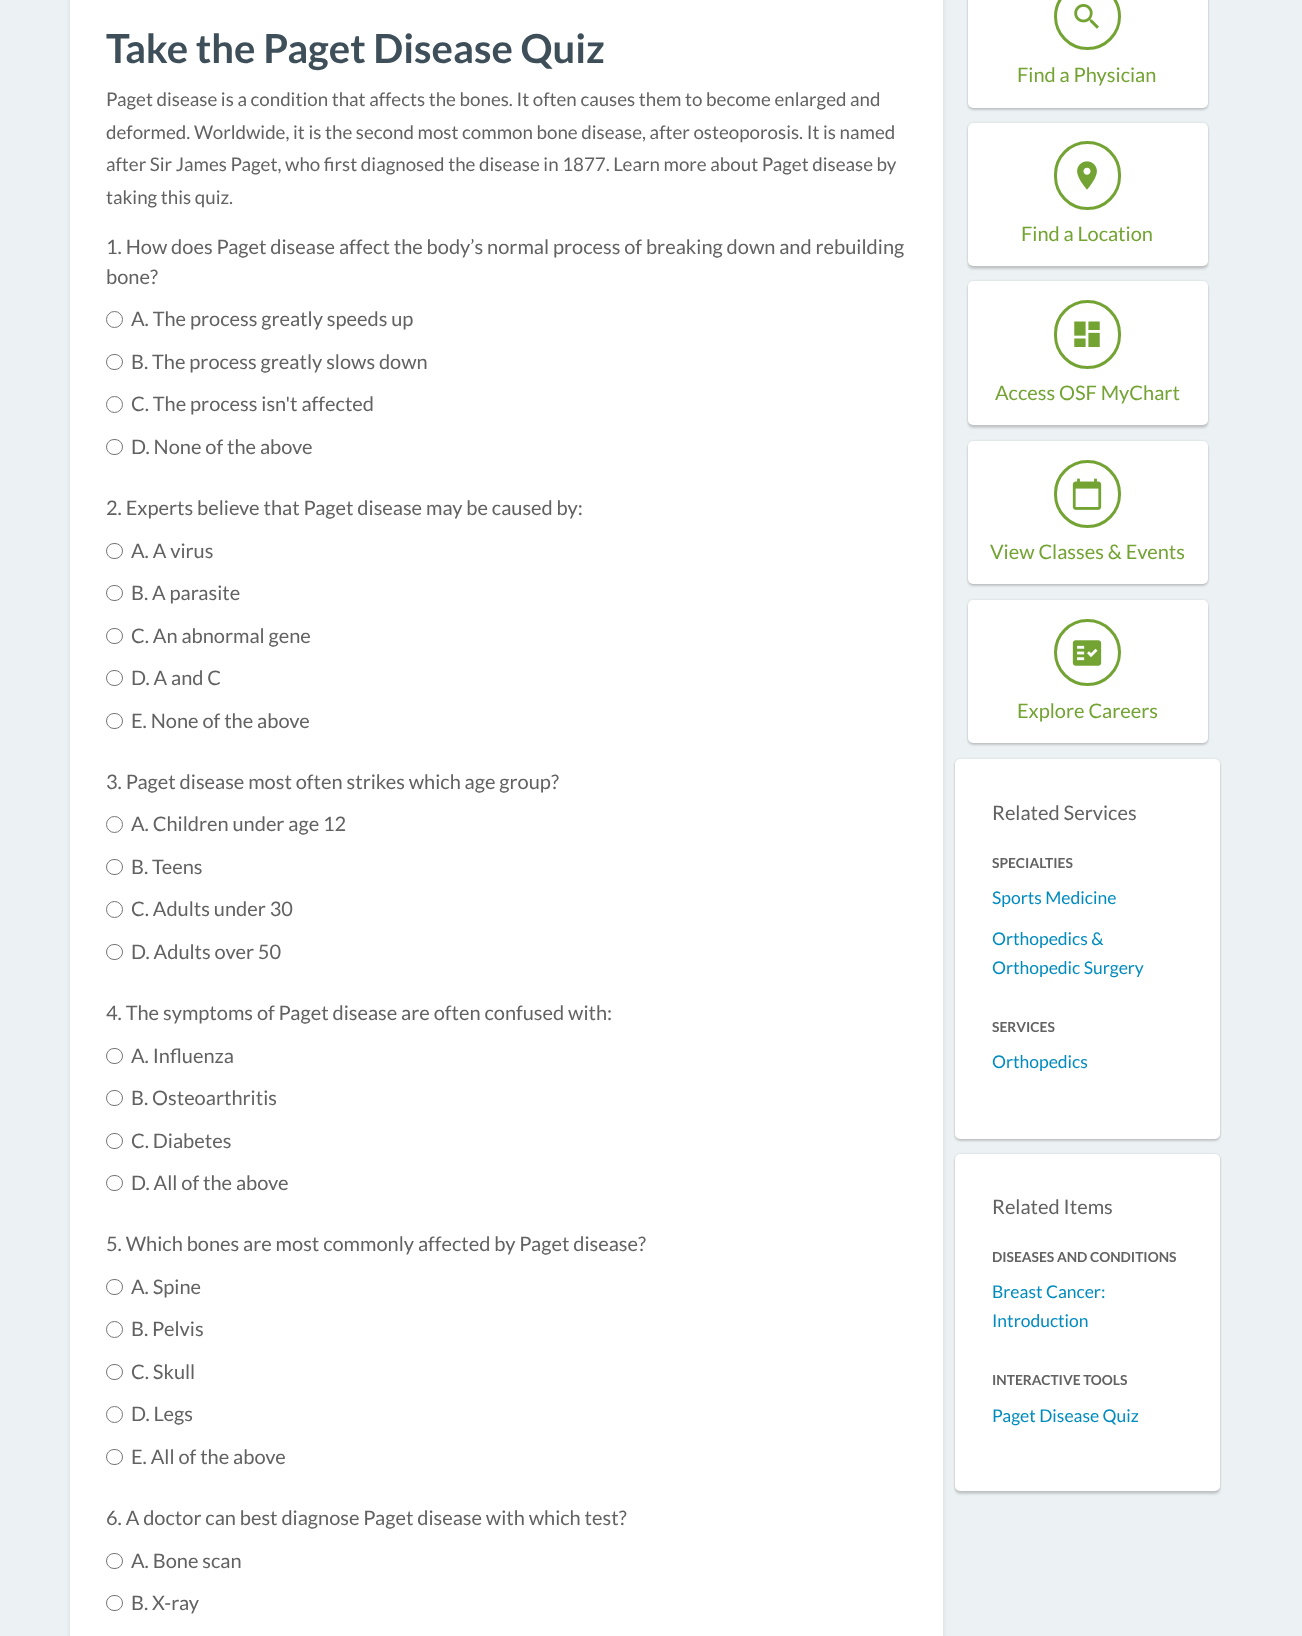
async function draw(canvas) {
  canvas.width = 1302
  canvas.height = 1636
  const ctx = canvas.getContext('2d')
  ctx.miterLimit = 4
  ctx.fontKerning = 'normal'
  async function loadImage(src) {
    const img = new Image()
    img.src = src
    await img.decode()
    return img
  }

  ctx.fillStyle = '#ecf1f4'
  ctx.fillRect(0, 0, 1302, 1636)
  ctx.fillStyle = '#0d001f1a'
  ctx.filter = 'blur(2.5px)'
  ctx.beginPath()
  ctx.roundRect(70, -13, 873, 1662, 5)
  ctx.fill()
  ctx.filter = 'none'
  ctx.fillStyle = '#fff'
  ctx.fillRect(70, 0, 873, 1636)
  ctx.font = 'bold 40px Lato'
  ctx.fillStyle = '#3e4f5a'
  ctx.fillText('Take the Paget Disease Quiz', 106, 63)
  ctx.font = '18.75px Lato'
  ctx.fillStyle = '#626262'
  ctx.fillText('Paget disease is a condition that affects the bones. It often causes them to become enlarged and', 106, 106)
  ctx.fillText('deformed. Worldwide, it is the second most common bone disease, after osteoporosis. It is named', 106, 139)
  ctx.fillText('after Sir James Paget, who first diagnosed the disease in 1877. Learn more about Paget disease by', 106, 171)
  ctx.fillText('taking this quiz.', 106, 204)
  ctx.font = '20px Lato'
  ctx.fillText('1. How does Paget disease affect the body’s normal process of breaking down and rebuilding', 106, 254)
  ctx.fillText('bone?', 106, 284)
  ctx.beginPath()
  ctx.arc(114.5, 319.5, 8, 0, 2 * Math.PI)
  ctx.strokeStyle = '#767676'
  ctx.stroke()
  ctx.fillText('A. The process greatly speeds up', 131, 326)
  ctx.beginPath()
  ctx.roundRect(106.5, 354.5, 16, 15, 7.5)
  ctx.stroke()
  ctx.fillText('B. The process greatly slows down', 131, 369)
  ctx.beginPath()
  ctx.arc(114.5, 404.5, 8, 0, 2 * Math.PI)
  ctx.stroke()
  ctx.fillText('C. The process isn\'t affected', 131, 411)
  ctx.beginPath()
  ctx.roundRect(106.5, 439.5, 16, 15, 7.5)
  ctx.stroke()
  ctx.fillText('D. None of the above', 131, 454)
  ctx.fillText('2. Experts believe that Paget disease may be caused by:', 106, 515)
  ctx.beginPath()
  ctx.roundRect(106.5, 543.5, 16, 15, 7.5)
  ctx.stroke()
  ctx.fillText('A. A virus', 131, 558)
  ctx.beginPath()
  ctx.roundRect(106.5, 585.5, 16, 15, 7.5)
  ctx.stroke()
  ctx.fillText('B. A parasite', 131, 600)
  ctx.beginPath()
  ctx.roundRect(106.5, 628.5, 16, 15, 7.5)
  ctx.stroke()
  ctx.fillText('C. An abnormal gene', 131, 643)
  ctx.beginPath()
  ctx.roundRect(106.5, 670.5, 16, 15, 7.5)
  ctx.stroke()
  ctx.fillText('D. A and C', 131, 685)
  ctx.beginPath()
  ctx.roundRect(106.5, 713.5, 16, 15, 7.5)
  ctx.stroke()
  ctx.fillText('E. None of the above', 131, 728)
  ctx.fillText('3. Paget disease most often strikes which age group?', 106, 789)
  ctx.beginPath()
  ctx.arc(114.5, 824.5, 8, 0, 2 * Math.PI)
  ctx.stroke()
  ctx.fillText('A. Children under age 12', 131, 831)
  ctx.beginPath()
  ctx.roundRect(106.5, 859.5, 16, 15, 7.5)
  ctx.stroke()
  ctx.fillText('B. Teens', 131, 874)
  ctx.beginPath()
  ctx.arc(114.5, 909.5, 8, 0, 2 * Math.PI)
  ctx.stroke()
  ctx.fillText('C. Adults under 30', 131, 916)
  ctx.beginPath()
  ctx.roundRect(106.5, 944.5, 16, 15, 7.5)
  ctx.stroke()
  ctx.fillText('D. Adults over 50', 131, 959)
  ctx.fillText('4. The symptoms of Paget disease are often confused with:', 106, 1020)
  ctx.beginPath()
  ctx.roundRect(106.5, 1048.5, 16, 15, 7.5)
  ctx.stroke()
  ctx.fillText('A. Influenza', 131, 1063)
  ctx.beginPath()
  ctx.roundRect(106.5, 1090.5, 16, 15, 7.5)
  ctx.stroke()
  ctx.fillText('B. Osteoarthritis', 131, 1105)
  ctx.beginPath()
  ctx.roundRect(106.5, 1133.5, 16, 15, 7.5)
  ctx.stroke()
  ctx.fillText('C. Diabetes', 131, 1148)
  ctx.beginPath()
  ctx.roundRect(106.5, 1175.5, 16, 15, 7.5)
  ctx.stroke()
  ctx.fillText('D. All of the above', 131, 1190)
  ctx.fillText('5. Which bones are most commonly affected by Paget disease?', 106, 1251)
  ctx.beginPath()
  ctx.roundRect(106.5, 1279.5, 16, 15, 7.5)
  ctx.stroke()
  ctx.fillText('A. Spine', 131, 1294)
  ctx.beginPath()
  ctx.arc(114.5, 1329.5, 8, 0, 2 * Math.PI)
  ctx.stroke()
  ctx.fillText('B. Pelvis', 131, 1336)
  ctx.beginPath()
  ctx.roundRect(106.5, 1364.5, 16, 15, 7.5)
  ctx.stroke()
  ctx.fillText('C. Skull', 131, 1379)
  ctx.beginPath()
  ctx.arc(114.5, 1414.5, 8, 0, 2 * Math.PI)
  ctx.stroke()
  ctx.fillText('D. Legs', 131, 1421)
  ctx.beginPath()
  ctx.roundRect(106.5, 1449.5, 16, 15, 7.5)
  ctx.stroke()
  ctx.fillText('E. All of the above', 131, 1464)
  ctx.fillText('6. A doctor can best diagnose Paget disease with which test?', 106, 1525)
  ctx.beginPath()
  ctx.roundRect(106.5, 1553.5, 16, 15, 7.5)
  ctx.stroke()
  ctx.fillText('A. Bone scan', 131, 1568)
  ctx.beginPath()
  ctx.roundRect(106.5, 1595.5, 16, 15, 7.5)
  ctx.stroke()
  ctx.fillText('B. X-ray', 131, 1610)
  ctx.fillStyle = '#0000001f'
  ctx.filter = 'blur(1px)'
  ctx.beginPath()
  ctx.roundRect(968, -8, 240, 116, 5)
  ctx.fill()
  ctx.filter = 'none'
  ctx.fillStyle = '#00000029'
  ctx.filter = 'blur(1px)'
  ctx.beginPath()
  ctx.roundRect(968, -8, 240, 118, 5)
  ctx.fill()
  ctx.filter = 'none'
  ctx.fillStyle = '#fff'
  ctx.beginPath()
  ctx.roundRect(968, -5, 240, 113, 5)
  ctx.fill()
  ctx.beginPath()
  ctx.arc(1087.5, 16.5, 32, 0, 2 * Math.PI)
  ctx.strokeStyle = '#73a333'
  ctx.lineWidth = 3
  ctx.stroke()
  ctx.drawImage(await loadImage('image0.png'), 1074, 4, 25, 25)
  ctx.fillStyle = '#73a333'
  ctx.fillText('Find a Physician', 1017, 82)
  ctx.fillStyle = '#0000001f'
  ctx.filter = 'blur(1px)'
  ctx.beginPath()
  ctx.roundRect(968, 123, 240, 143, 5)
  ctx.fill()
  ctx.filter = 'none'
  ctx.fillStyle = '#00000029'
  ctx.filter = 'blur(1px)'
  ctx.beginPath()
  ctx.roundRect(968, 125, 240, 144, 5)
  ctx.fill()
  ctx.filter = 'none'
  ctx.fillStyle = '#fff'
  ctx.beginPath()
  ctx.roundRect(968, 123, 240, 143, 5)
  ctx.fill()
  ctx.beginPath()
  ctx.roundRect(1055.5, 142.5, 64, 66, 32)
  ctx.stroke()
  ctx.drawImage(await loadImage('image1.png'), 1077, 161, 20, 29)
  ctx.fillStyle = '#73a333'
  ctx.fillText('Find a Location', 1021, 241)
  ctx.fillStyle = '#0000001f'
  ctx.filter = 'blur(1px)'
  ctx.beginPath()
  ctx.roundRect(968, 281, 240, 144, 5)
  ctx.fill()
  ctx.filter = 'none'
  ctx.fillStyle = '#00000029'
  ctx.filter = 'blur(1px)'
  ctx.beginPath()
  ctx.roundRect(968, 284, 240, 144, 5)
  ctx.fill()
  ctx.filter = 'none'
  ctx.fillStyle = '#fff'
  ctx.beginPath()
  ctx.roundRect(968, 281, 240, 144, 5)
  ctx.fill()
  ctx.beginPath()
  ctx.roundRect(1055.5, 301.5, 64, 66, 32)
  ctx.stroke()
  ctx.drawImage(await loadImage('image2.png'), 1074, 321, 26, 26)
  ctx.fillStyle = '#73a333'
  ctx.fillText('Access OSF MyChart', 995, 400)
  ctx.fillStyle = '#0000001f'
  ctx.filter = 'blur(1px)'
  ctx.beginPath()
  ctx.roundRect(968, 441, 240, 143, 5)
  ctx.fill()
  ctx.filter = 'none'
  ctx.fillStyle = '#00000029'
  ctx.filter = 'blur(1px)'
  ctx.beginPath()
  ctx.roundRect(968, 444, 240, 142, 5)
  ctx.fill()
  ctx.filter = 'none'
  ctx.fillStyle = '#fff'
  ctx.beginPath()
  ctx.roundRect(968, 441, 240, 143, 5)
  ctx.fill()
  ctx.beginPath()
  ctx.roundRect(1055.5, 461.5, 64, 65, 32)
  ctx.stroke()
  ctx.drawImage(await loadImage('image3.png'), 1072, 478, 30, 32)
  ctx.fillStyle = '#73a333'
  ctx.fillText('View Classes & Events', 990, 559)
  ctx.fillStyle = '#0000001f'
  ctx.filter = 'blur(1px)'
  ctx.beginPath()
  ctx.roundRect(968, 600, 240, 143, 5)
  ctx.fill()
  ctx.filter = 'none'
  ctx.fillStyle = '#00000029'
  ctx.filter = 'blur(1px)'
  ctx.beginPath()
  ctx.roundRect(968, 603, 240, 142, 5)
  ctx.fill()
  ctx.filter = 'none'
  ctx.fillStyle = '#fff'
  ctx.beginPath()
  ctx.roundRect(968, 600, 240, 143, 5)
  ctx.fill()
  ctx.beginPath()
  ctx.arc(1087.5, 652.5, 32, 0, 2 * Math.PI)
  ctx.stroke()
  ctx.drawImage(await loadImage('image4.png'), 1072, 640, 30, 26)
  ctx.fillStyle = '#73a333'
  ctx.fillText('Explore Careers', 1017, 718)
  ctx.fillStyle = '#0000001f'
  ctx.filter = 'blur(1px)'
  ctx.beginPath()
  ctx.roundRect(955, 759, 265, 380, 5)
  ctx.fill()
  ctx.filter = 'none'
  ctx.fillStyle = '#00000029'
  ctx.filter = 'blur(1px)'
  ctx.beginPath()
  ctx.roundRect(955, 761, 265, 380, 5)
  ctx.fill()
  ctx.filter = 'none'
  ctx.fillStyle = '#fff'
  ctx.beginPath()
  ctx.roundRect(955, 759, 265, 380, 5)
  ctx.fill()
  ctx.fillStyle = '#626262'
  ctx.fillText('Related Services', 992, 820)
  ctx.font = 'bold 13.75px Lato'
  ctx.fillText('SPECIALTIES', 992, 868)
  ctx.font = '17.5px Lato'
  ctx.fillStyle = '#008bbf'
  ctx.fillText('Sports Medicine', 992, 904)
  ctx.fillText('Orthopedics &', 992, 945)
  ctx.fillText('Orthopedic Surgery', 992, 974)
  ctx.font = 'bold 13.75px Lato'
  ctx.fillStyle = '#626262'
  ctx.fillText('SERVICES', 992, 1032)
  ctx.font = '17.5px Lato'
  ctx.fillStyle = '#008bbf'
  ctx.fillText('Orthopedics', 992, 1068)
  ctx.fillStyle = '#0000001f'
  ctx.filter = 'blur(1px)'
  ctx.beginPath()
  ctx.roundRect(955, 1154, 265, 337, 5)
  ctx.fill()
  ctx.filter = 'none'
  ctx.fillStyle = '#00000029'
  ctx.filter = 'blur(1px)'
  ctx.beginPath()
  ctx.roundRect(955, 1156, 265, 338, 5)
  ctx.fill()
  ctx.filter = 'none'
  ctx.fillStyle = '#fff'
  ctx.beginPath()
  ctx.roundRect(955, 1154, 265, 337, 5)
  ctx.fill()
  ctx.font = '20px Lato'
  ctx.fillStyle = '#626262'
  ctx.fillText('Related Items', 992, 1214)
  ctx.font = 'bold 13.75px Lato'
  ctx.fillText('DISEASES AND CONDITIONS', 992, 1262)
  ctx.font = '17.5px Lato'
  ctx.fillStyle = '#008bbf'
  ctx.fillText('Breast Cancer:', 992, 1298)
  ctx.fillText('Introduction', 992, 1327)
  ctx.font = 'bold 13.75px Lato'
  ctx.fillStyle = '#626262'
  ctx.fillText('INTERACTIVE TOOLS', 992, 1385)
  ctx.font = '17.5px Lato'
  ctx.fillStyle = '#008bbf'
  ctx.fillText('Paget Disease Quiz', 992, 1422)
}

draw(document.querySelector('canvas'))
